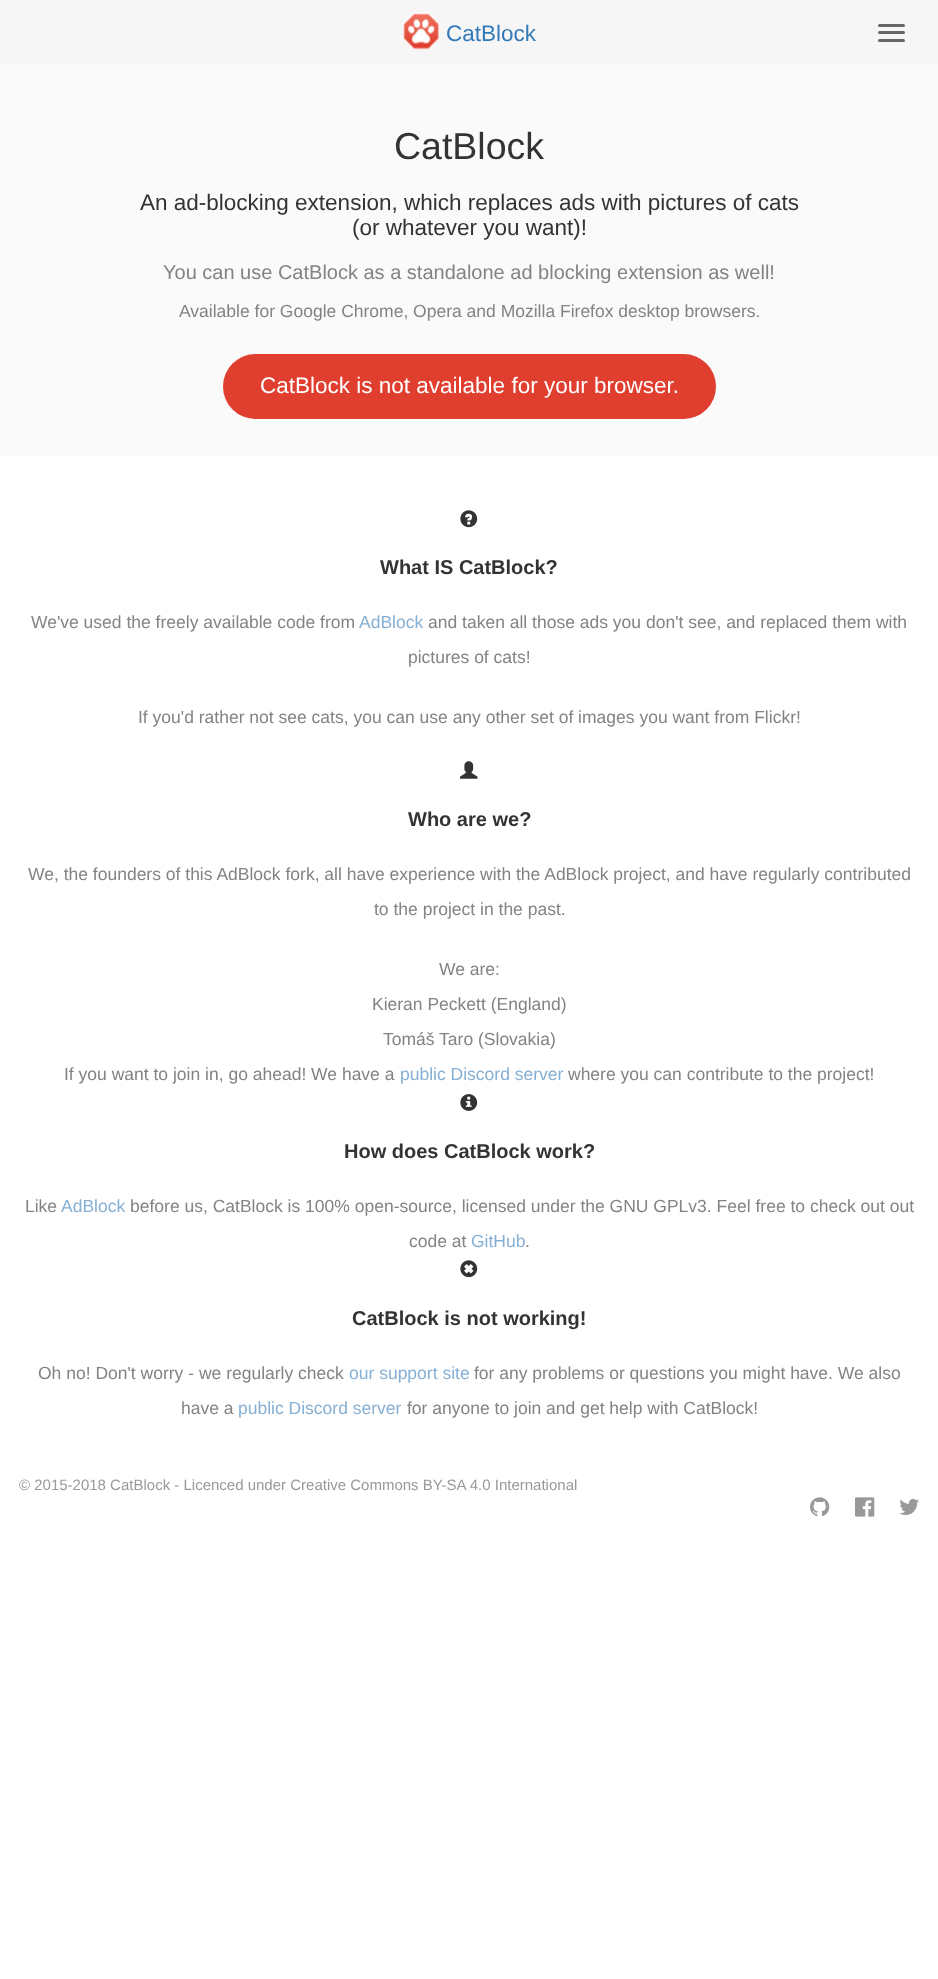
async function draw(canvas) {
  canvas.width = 938
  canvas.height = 1979
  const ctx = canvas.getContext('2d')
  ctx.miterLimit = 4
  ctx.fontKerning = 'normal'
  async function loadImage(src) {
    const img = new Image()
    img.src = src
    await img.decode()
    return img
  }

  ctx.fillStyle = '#fff'
  ctx.fillRect(0, 0, 938, 1979)
  ctx.fillStyle = '#f6f6f6'
  ctx.fillRect(0, 0, 938, 65)
  ctx.drawImage(await loadImage('image0.png'), 402, 12, 38, 38)
  ctx.font = '22.5px Liberation Sans'
  ctx.fillStyle = '#337ab7'
  ctx.fillText('CatBlock', 446, 41)
  ctx.fillStyle = '#666'
  ctx.beginPath()
  ctx.roundRect(878, 24, 27, 3, 1.5)
  ctx.fill()
  ctx.beginPath()
  ctx.roundRect(878, 31, 27, 3, 1.5)
  ctx.fill()
  ctx.beginPath()
  ctx.roundRect(878, 39, 27, 3, 1.5)
  ctx.fill()
  ctx.fillStyle = '#fafafa'
  ctx.fillRect(0, 65, 938, 391)
  ctx.font = '37.5px Liberation Sans'
  ctx.fillStyle = '#333'
  ctx.fillText('CatBlock', 394, 159)
  ctx.font = '22.5px Liberation Sans'
  ctx.fillText('An ad-blocking extension, which replaces ads with pictures of cats', 140, 210)
  ctx.fillText('(or whatever you want)!', 352, 235)
  ctx.font = '20px Liberation Sans'
  ctx.fillStyle = '#838383'
  ctx.fillText('You can use CatBlock as a standalone ad blocking extension as well!', 163, 279)
  ctx.font = '17.5px Liberation Sans'
  ctx.fillText('Available for Google Chrome, Opera and Mozilla Firefox desktop browsers.', 179, 317)
  ctx.fillStyle = '#e03e2f'
  ctx.beginPath()
  ctx.roundRect(223, 354, 493, 65, 32.5)
  ctx.fill()
  ctx.font = '22.5px Liberation Sans'
  ctx.fillStyle = '#fff'
  ctx.fillText('CatBlock is not available for your browser.', 260, 393)
  ctx.drawImage(await loadImage('image1.png'), 460, 510, 18, 18)
  ctx.font = 'bold 20px Liberation Sans'
  ctx.fillStyle = '#333'
  ctx.fillText('What IS CatBlock?', 380, 574)
  ctx.font = '17.5px Liberation Sans'
  ctx.fillStyle = '#838383'
  ctx.fillText('We\'ve used the freely available code from', 31, 628)
  ctx.fillStyle = '#85afd4'
  ctx.fillText('AdBlock', 359, 628)
  ctx.fillStyle = '#838383'
  ctx.fillText('and taken all those ads you don\'t see, and replaced them with', 428, 628)
  ctx.fillText('pictures of cats!', 408, 663)
  ctx.fillText('If you\'d rather not see cats, you can use any other set of images you want from Flickr!', 138, 723)
  ctx.drawImage(await loadImage('image2.png'), 460, 761, 18, 18)
  ctx.font = 'bold 20px Liberation Sans'
  ctx.fillStyle = '#333'
  ctx.fillText('Who are we?', 408, 826)
  ctx.font = '17.5px Liberation Sans'
  ctx.fillStyle = '#838383'
  ctx.fillText('We, the founders of this AdBlock fork, all have experience with the AdBlock project, and have regularly contributed', 28, 880)
  ctx.fillText('to the project in the past.', 374, 915)
  ctx.fillText('We are:', 439, 975)
  ctx.fillText('Kieran Peckett (England)', 372, 1010)
  ctx.fillText('Tomáš Taro (Slovakia)', 383, 1045)
  ctx.fillText('If you want to join in, go ahead! We have a', 64, 1080)
  ctx.fillStyle = '#85afd4'
  ctx.fillText('public Discord server', 400, 1080)
  ctx.fillStyle = '#838383'
  ctx.fillText('where you can contribute to the project!', 568, 1080)
  ctx.drawImage(await loadImage('image3.png'), 460, 1094, 18, 17)
  ctx.font = 'bold 20px Liberation Sans'
  ctx.fillStyle = '#333'
  ctx.fillText('How does CatBlock work?', 344, 1158)
  ctx.font = '17.5px Liberation Sans'
  ctx.fillStyle = '#838383'
  ctx.fillText('Like', 25, 1212)
  ctx.fillStyle = '#85afd4'
  ctx.fillText('AdBlock', 61, 1212)
  ctx.fillStyle = '#838383'
  ctx.fillText('before us, CatBlock is 100% open-source, licensed under the GNU GPLv3. Feel free to check out out', 130, 1212)
  ctx.fillText('code at', 409, 1247)
  ctx.fillStyle = '#85afd4'
  ctx.fillText('GitHub', 471, 1247)
  ctx.fillStyle = '#838383'
  ctx.fillText('.', 525, 1247)
  ctx.drawImage(await loadImage('image4.png'), 460, 1260, 18, 18)
  ctx.font = 'bold 20px Liberation Sans'
  ctx.fillStyle = '#333'
  ctx.fillText('CatBlock is not working!', 352, 1325)
  ctx.font = '17.5px Liberation Sans'
  ctx.fillStyle = '#838383'
  ctx.fillText('Oh no! Don\'t worry - we regularly check', 38, 1379)
  ctx.fillStyle = '#85afd4'
  ctx.fillText('our support site', 349, 1379)
  ctx.fillStyle = '#838383'
  ctx.fillText('for any problems or questions you might have. We also', 474, 1379)
  ctx.fillText('have a', 181, 1414)
  ctx.fillStyle = '#85afd4'
  ctx.fillText('public Discord server', 238, 1414)
  ctx.fillStyle = '#838383'
  ctx.fillText('for anyone to join and get help with CatBlock!', 407, 1414)
  ctx.font = '15px Liberation Sans'
  ctx.fillStyle = '#999'
  ctx.fillText('© 2015-2018 CatBlock - Licenced under Creative Commons BY-SA 4.0 International', 19, 1490)
  ctx.drawImage(await loadImage('image5.png'), 810, 1497, 20, 20)
  ctx.drawImage(await loadImage('image6.png'), 855, 1497, 20, 20)
  ctx.drawImage(await loadImage('image7.png'), 899, 1499, 20, 16)
}

draw(document.querySelector('canvas'))
